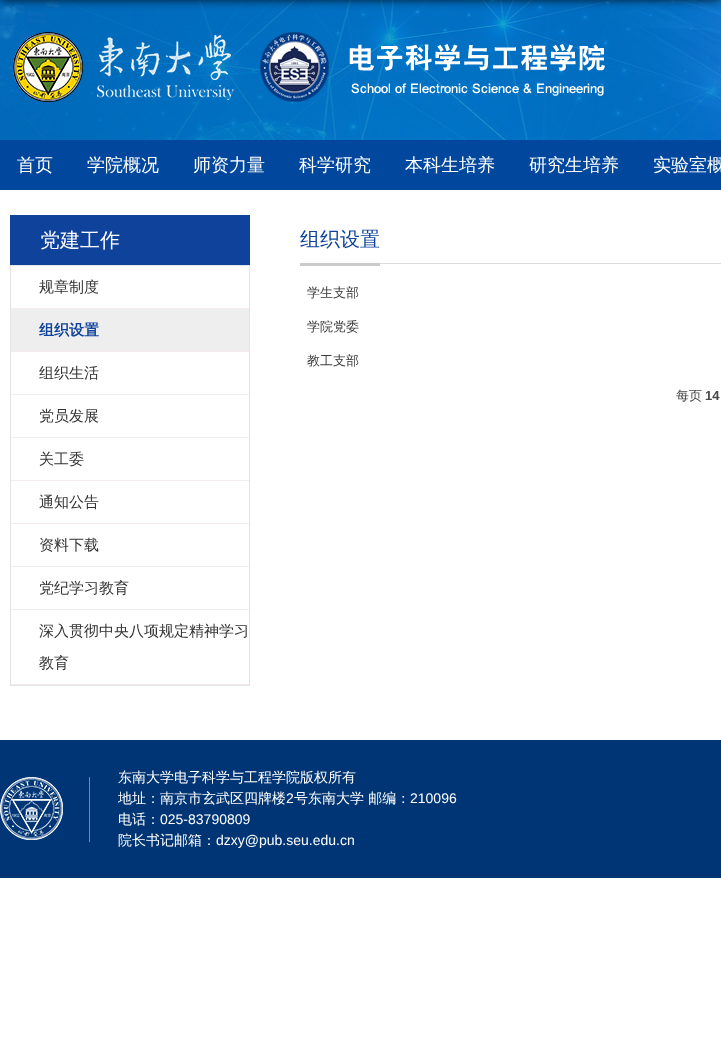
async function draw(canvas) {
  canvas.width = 721
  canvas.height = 1043
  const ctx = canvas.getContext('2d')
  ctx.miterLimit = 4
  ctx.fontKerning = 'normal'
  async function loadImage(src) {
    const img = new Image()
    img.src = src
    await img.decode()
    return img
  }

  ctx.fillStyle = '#fff'
  ctx.fillRect(0, 0, 721, 1043)
  ctx.drawImage(await loadImage('image0.png'), 0, 0, 721, 140)
  ctx.drawImage(await loadImage('image1.png'), 13, 32, 592, 70)
  ctx.fillStyle = '#000000cc'
  ctx.filter = 'blur(5px)'
  ctx.beginPath()
  ctx.rect(0, -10, 721, 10)
  ctx.fill()
  ctx.filter = 'none'
  ctx.fillStyle = '#00479d'
  ctx.fillRect(0, 140, 721, 50)
  ctx.font = '500 18px WenQuanYi Zen Hei'
  ctx.fillStyle = '#fff'
  ctx.fillText('首页', 17, 171)
  ctx.fillText('学院概况', 87, 171)
  ctx.fillText('师资力量', 193, 171)
  ctx.fillText('科学研究', 299, 171)
  ctx.fillText('本科生培养', 405, 171)
  ctx.fillText('研究生培养', 529, 171)
  ctx.fillText('实验室概', 653, 171)
  ctx.fillStyle = '#0f429b'
  ctx.fillRect(10, 215, 240, 50)
  ctx.font = '500 20px WenQuanYi Zen Hei'
  ctx.fillStyle = '#fff'
  ctx.fillText('党建工作', 40, 247)
  ctx.strokeStyle = '#e4e4e4'
  ctx.strokeRect(10.5, 265.5, 239, 420)
  ctx.fillStyle = '#f6eaea'
  ctx.fillRect(11, 308, 238, 1)
  ctx.font = '500 15px WenQuanYi Zen Hei'
  ctx.fillStyle = '#333'
  ctx.fillText('规章制度', 39, 292)
  ctx.fillStyle = '#eee'
  ctx.fillRect(11, 309, 238, 42)
  ctx.fillStyle = '#f6eaea'
  ctx.fillRect(11, 351, 238, 1)
  ctx.font = 'bold 15px WenQuanYi Zen Hei'
  ctx.fillStyle = '#0f429b'
  ctx.fillText('组织设置', 39, 335)
  ctx.fillStyle = '#f6eaea'
  ctx.fillRect(11, 394, 238, 1)
  ctx.font = '500 15px WenQuanYi Zen Hei'
  ctx.fillStyle = '#333'
  ctx.fillText('组织生活', 39, 378)
  ctx.fillStyle = '#f6eaea'
  ctx.fillRect(11, 437, 238, 1)
  ctx.fillStyle = '#333'
  ctx.fillText('党员发展', 39, 421)
  ctx.fillStyle = '#f6eaea'
  ctx.fillRect(11, 480, 238, 1)
  ctx.fillStyle = '#333'
  ctx.fillText('关工委', 39, 464)
  ctx.fillStyle = '#f6eaea'
  ctx.fillRect(11, 523, 238, 1)
  ctx.fillStyle = '#333'
  ctx.fillText('通知公告', 39, 507)
  ctx.fillStyle = '#f6eaea'
  ctx.fillRect(11, 566, 238, 1)
  ctx.fillStyle = '#333'
  ctx.fillText('资料下载', 39, 550)
  ctx.fillStyle = '#f6eaea'
  ctx.fillRect(11, 609, 238, 1)
  ctx.fillStyle = '#333'
  ctx.fillText('党纪学习教育', 39, 593)
  ctx.fillStyle = '#f6eaea'
  ctx.fillRect(11, 684, 238, 1)
  ctx.fillStyle = '#333'
  ctx.fillText('深入贯彻中央八项规定精神学习', 39, 636)
  ctx.fillText('教育', 39, 668)
  ctx.fillStyle = '#dbdbdb'
  ctx.fillRect(380, 263, 341, 1)
  ctx.fillStyle = '#cbcbcb'
  ctx.fillRect(300, 263, 80, 3)
  ctx.font = '500 20px WenQuanYi Zen Hei'
  ctx.fillStyle = '#0f429b'
  ctx.fillText('组织设置', 300, 246)
  ctx.font = '500 13px WenQuanYi Zen Hei'
  ctx.fillStyle = '#3b3b3b'
  ctx.fillText('学生支部', 307, 297)
  ctx.fillText('学院党委', 307, 331)
  ctx.fillText('教工支部', 307, 365)
  ctx.fillStyle = '#494949'
  ctx.fillText('每页', 676, 400)
  ctx.font = 'bold 13px Liberation Sans'
  ctx.fillText('14', 705, 400)
  ctx.fillStyle = '#003575'
  ctx.fillRect(0, 740, 721, 138)
  ctx.drawImage(await loadImage('image2.png'), 0, 777, 63, 63)
  ctx.fillStyle = '#6e8cb1'
  ctx.fillRect(89, 777, 1, 65)
  ctx.font = '500 14px WenQuanYi Zen Hei'
  ctx.fillStyle = '#fff'
  ctx.fillText('东南大学电子科学与工程学院版权所有', 118, 782)
  ctx.fillText('地址：南京市玄武区四牌楼', 118, 803)
  ctx.font = '14px Liberation Sans'
  ctx.fillText('2', 286, 803)
  ctx.font = '500 14px WenQuanYi Zen Hei'
  ctx.fillText('号东南大学 邮编：', 294, 803)
  ctx.font = '14px Liberation Sans'
  ctx.fillText('210096', 410, 803)
  ctx.font = '500 14px WenQuanYi Zen Hei'
  ctx.fillText('电话：', 118, 824)
  ctx.font = '14px Liberation Sans'
  ctx.fillText('025-83790809', 160, 824)
  ctx.font = '500 14px WenQuanYi Zen Hei'
  ctx.fillText('院长书记邮箱：', 118, 845)
  ctx.font = '14px Liberation Sans'
  ctx.fillText('dzxy@pub.seu.edu.cn', 216, 845)
}

draw(document.querySelector('canvas'))
